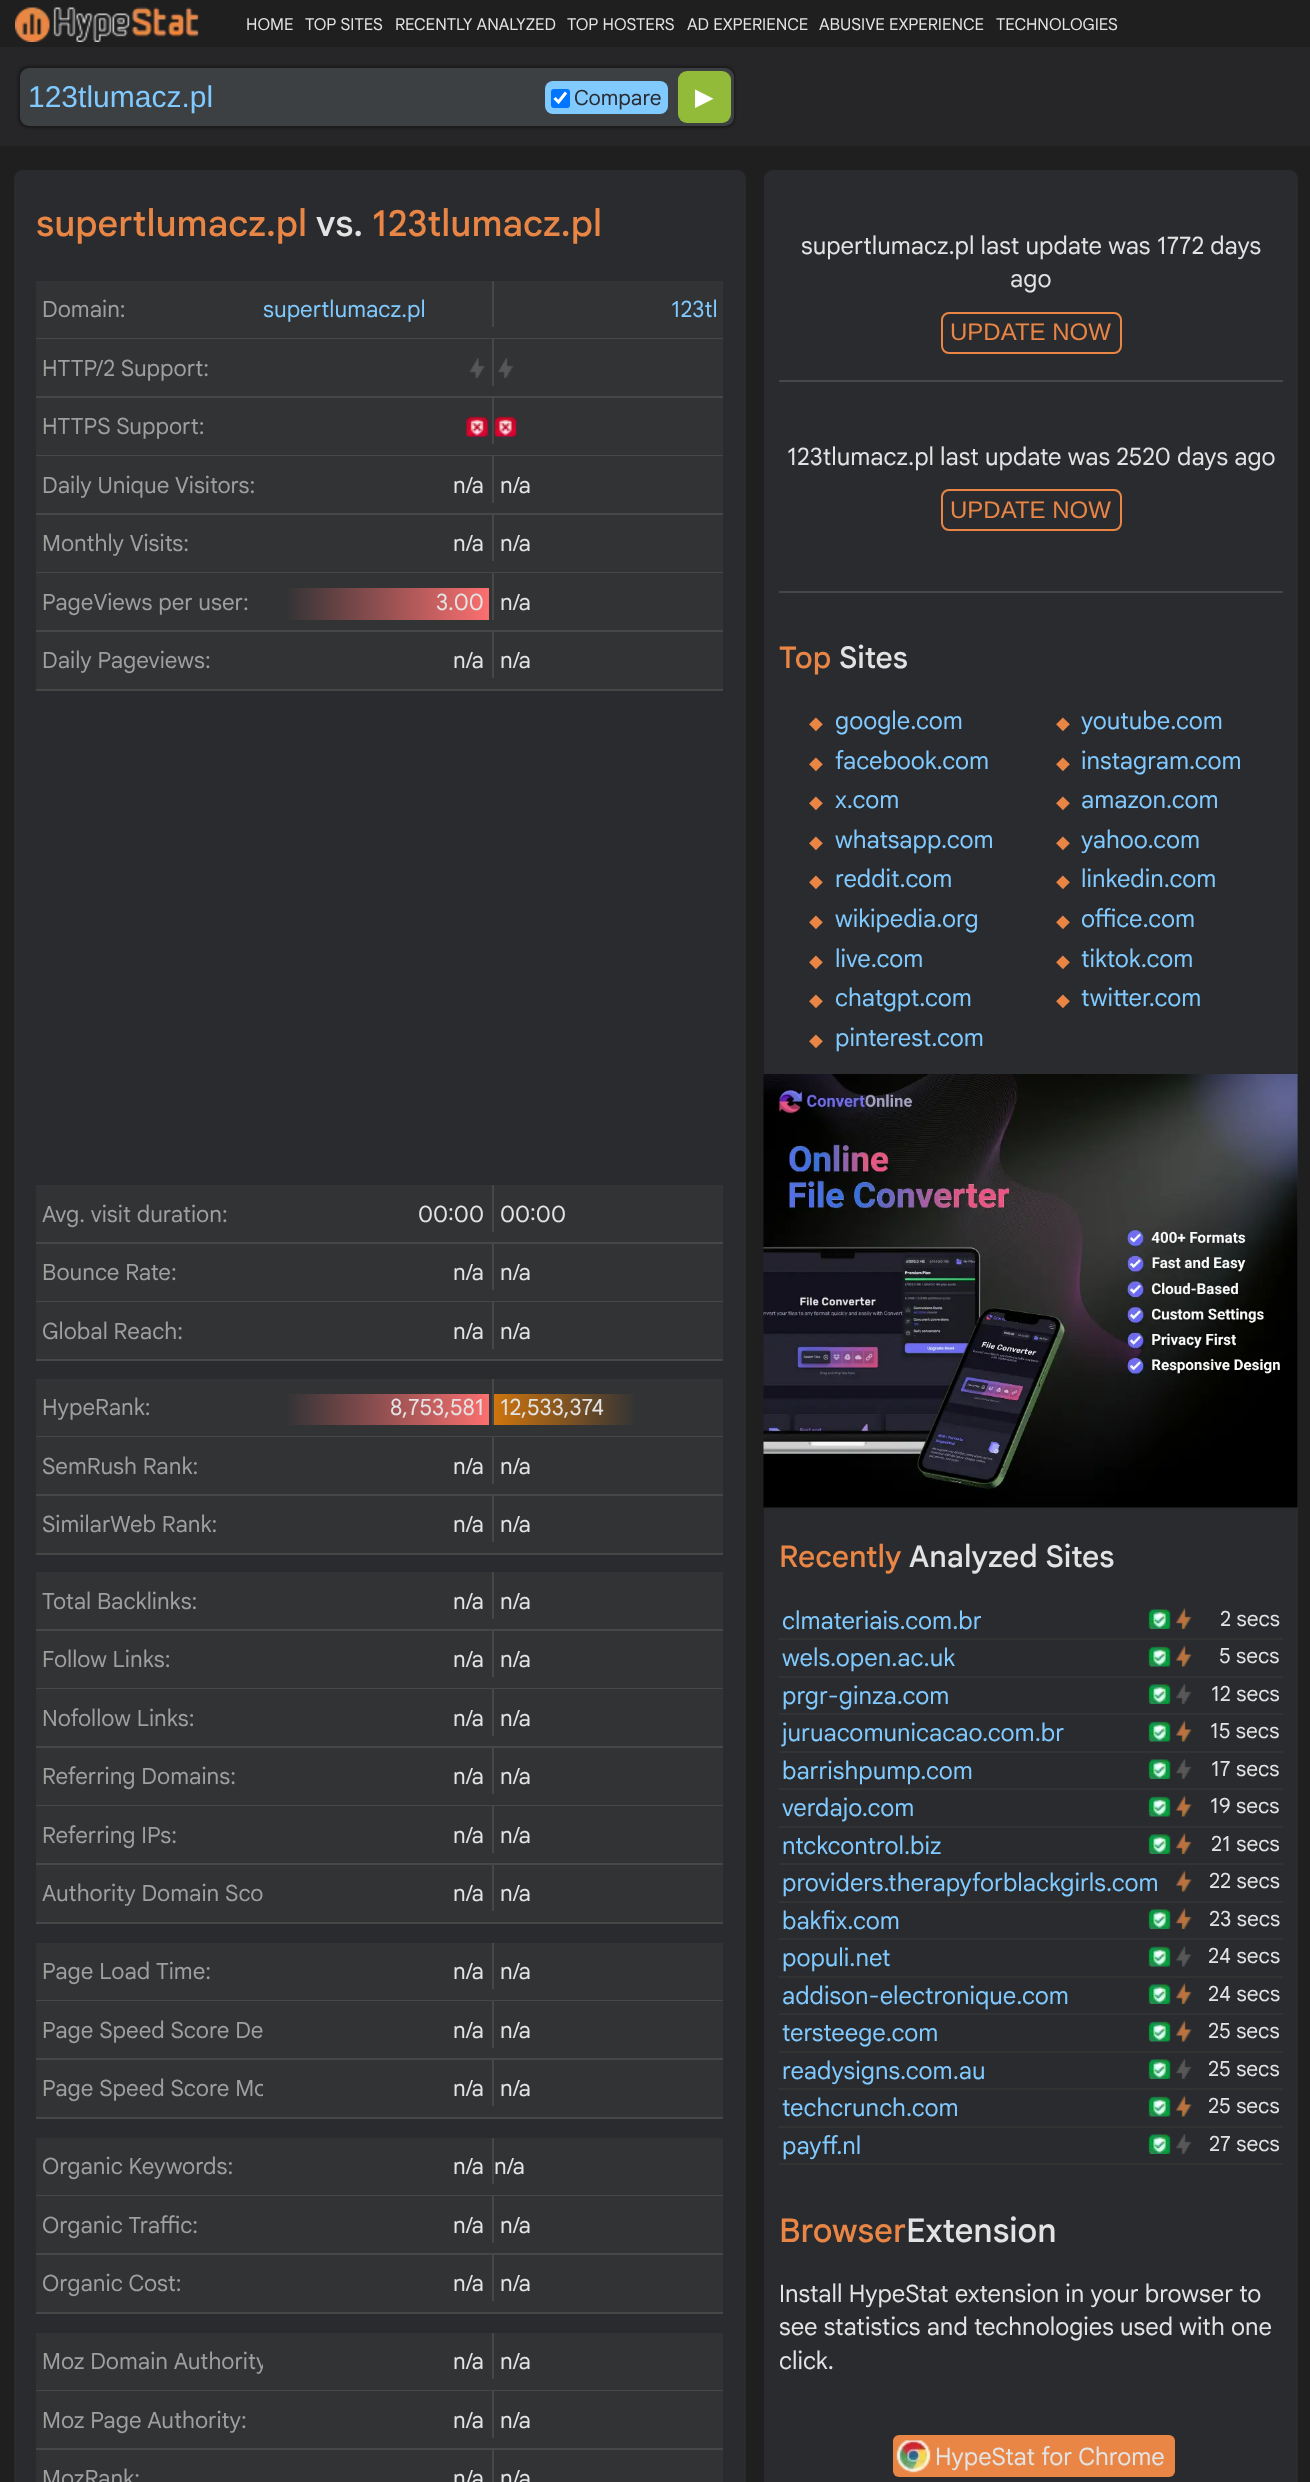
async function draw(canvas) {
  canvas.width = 1310
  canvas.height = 2482
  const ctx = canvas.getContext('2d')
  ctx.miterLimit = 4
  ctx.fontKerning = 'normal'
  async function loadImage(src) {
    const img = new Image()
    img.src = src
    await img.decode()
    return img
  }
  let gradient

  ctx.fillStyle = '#1f1f1f'
  ctx.fillRect(0, 0, 1310, 2482)
  ctx.drawImage(await loadImage('image0.png'), 15, 7, 184, 35)
  ctx.font = '16.5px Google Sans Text'
  ctx.fillStyle = '#e3e3e3'
  ctx.fillText('HOME', 246, 30)
  ctx.fillText('TOP SITES', 305, 30)
  ctx.fillText('RECENTLY ANALYZED', 395, 30)
  ctx.fillText('TOP HOSTERS', 567, 30)
  ctx.fillText('AD EXPERIENCE', 687, 30)
  ctx.fillText('ABUSIVE EXPERIENCE', 819, 30)
  ctx.fillText('TECHNOLOGIES', 996, 30)
  ctx.fillStyle = '#262629'
  ctx.fillRect(0, 47, 1310, 99)
  ctx.fillStyle = '#1a1a1a'
  ctx.filter = 'blur(1px)'
  ctx.beginPath()
  ctx.roundRect(18, 66, 717, 62, 11)
  ctx.fill()
  ctx.filter = 'none'
  ctx.fillStyle = '#3c4043'
  ctx.beginPath()
  ctx.roundRect(20, 68, 714, 58, 9)
  ctx.fill()
  ctx.font = '30px Liberation Sans'
  ctx.fillStyle = '#80caff'
  ctx.fillText('123tlumacz.pl', 28, 107)
  ctx.beginPath()
  ctx.roundRect(545, 81, 123, 33, 8)
  ctx.fill()
  ctx.fillStyle = '#0075ff'
  ctx.beginPath()
  ctx.roundRect(551, 89, 19, 19, 3)
  ctx.fill()
  ctx.beginPath()
  ctx.moveTo(554.5, 98)
  ctx.lineTo(558.5, 102)
  ctx.lineTo(566, 92.5)
  ctx.strokeStyle = '#fff'
  ctx.lineWidth = 3.1
  ctx.stroke()
  ctx.font = '21px Google Sans Text'
  ctx.fillStyle = '#2a2b2f'
  ctx.fillText('Compare', 574, 105)
  ctx.fillStyle = '#92bb39'
  ctx.beginPath()
  ctx.roundRect(678, 71, 53, 52, 9)
  ctx.fill()
  ctx.font = '24px DejaVu Sans'
  ctx.fillStyle = '#fff'
  ctx.fillText('▶', 695, 105)
  ctx.fillStyle = '#2a2b2f'
  ctx.beginPath()
  ctx.roundRect(14, 170, 732, 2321, 9)
  ctx.fill()
  ctx.font = '500 36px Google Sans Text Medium'
  ctx.fillStyle = '#e98645'
  ctx.fillText('supertlumacz.pl', 36, 236)
  ctx.fillStyle = '#e3e3e3'
  ctx.fillText('vs.', 316, 236)
  ctx.fillStyle = '#e98645'
  ctx.fillText('123tlumacz.pl', 372, 236)
  ctx.fillStyle = '#323335'
  ctx.fillRect(36, 281, 687, 57)
  ctx.fillStyle = '#474747'
  ctx.fillRect(36, 338, 687, 1)
  ctx.font = '22.5px Google Sans Text'
  ctx.fillStyle = '#9f9f9f'
  ctx.fillText('Domain:', 42, 317)
  ctx.fillStyle = '#474747'
  ctx.fillRect(492, 281, 2, 46)
  ctx.fillStyle = '#80caff'
  ctx.fillText('supertlumacz.pl', 263, 317)
  ctx.fillText('123tl', 671, 317)
  ctx.fillStyle = '#323335'
  ctx.fillRect(36, 339, 687, 57)
  ctx.fillStyle = '#474747'
  ctx.fillRect(36, 396, 687, 2)
  ctx.fillStyle = '#9f9f9f'
  ctx.fillText('HTTP/2 Support:', 42, 376)
  ctx.fillStyle = '#474747'
  ctx.fillRect(492, 339, 2, 47)
  ctx.drawImage(await loadImage('image1.png'), 469, 358, 16, 20)
  ctx.drawImage(await loadImage('image2.png'), 498, 358, 16, 20)
  ctx.fillStyle = '#323335'
  ctx.fillRect(36, 398, 687, 57)
  ctx.fillStyle = '#474747'
  ctx.fillRect(36, 455, 687, 1)
  ctx.fillStyle = '#9f9f9f'
  ctx.fillText('HTTPS Support:', 42, 434)
  ctx.fillStyle = '#474747'
  ctx.fillRect(492, 398, 2, 46)
  ctx.drawImage(await loadImage('image3.png'), 466, 416, 22, 21)
  ctx.drawImage(await loadImage('image4.png'), 494, 416, 23, 21)
  ctx.fillStyle = '#323335'
  ctx.fillRect(36, 456, 687, 57)
  ctx.fillStyle = '#474747'
  ctx.fillRect(36, 513, 687, 2)
  ctx.fillStyle = '#9f9f9f'
  ctx.fillText('Daily Unique Visitors:', 42, 493)
  ctx.fillStyle = '#474747'
  ctx.fillRect(492, 456, 2, 47)
  ctx.fillStyle = '#e3e3e3'
  ctx.fillText('n/a', 453, 493)
  ctx.fillText('n/a', 500, 493)
  ctx.fillStyle = '#323335'
  ctx.fillRect(36, 515, 687, 57)
  ctx.fillStyle = '#474747'
  ctx.fillRect(36, 572, 687, 1)
  ctx.fillStyle = '#9f9f9f'
  ctx.fillText('Monthly Visits:', 42, 551)
  ctx.fillStyle = '#474747'
  ctx.fillRect(492, 515, 2, 46)
  ctx.fillStyle = '#e3e3e3'
  ctx.fillText('n/a', 453, 551)
  ctx.fillText('n/a', 500, 551)
  ctx.fillStyle = '#323335'
  ctx.fillRect(36, 573, 687, 57)
  ctx.fillStyle = '#474747'
  ctx.fillRect(36, 630, 687, 2)
  ctx.fillStyle = '#9f9f9f'
  ctx.fillText('PageViews per user:', 42, 610)
  gradient = ctx.createLinearGradient(492, 596, 285, 596)
  gradient.addColorStop(0, '#ff7070')
  gradient.addColorStop(1, '#323335')
  ctx.fillStyle = gradient
  ctx.fillRect(288, 588, 201, 32)
  ctx.fillStyle = '#474747'
  ctx.fillRect(492, 573, 2, 47)
  ctx.fillStyle = '#e3e3e3'
  ctx.fillText('3.00', 436, 610)
  ctx.fillText('n/a', 500, 610)
  ctx.fillStyle = '#323335'
  ctx.fillRect(36, 632, 687, 57)
  ctx.fillStyle = '#474747'
  ctx.fillRect(36, 689, 687, 2)
  ctx.fillStyle = '#9f9f9f'
  ctx.fillText('Daily Pageviews:', 42, 668)
  ctx.fillStyle = '#474747'
  ctx.fillRect(492, 632, 2, 46)
  ctx.fillStyle = '#e3e3e3'
  ctx.fillText('n/a', 453, 668)
  ctx.fillText('n/a', 500, 668)
  ctx.fillStyle = '#323335'
  ctx.fillRect(36, 1185, 687, 57)
  ctx.fillStyle = '#474747'
  ctx.fillRect(36, 1242, 687, 2)
  ctx.fillStyle = '#9f9f9f'
  ctx.fillText('Avg. visit duration:', 42, 1222)
  ctx.fillStyle = '#474747'
  ctx.fillRect(492, 1185, 2, 47)
  ctx.fillStyle = '#e3e3e3'
  ctx.fillText('00:00', 418, 1222)
  ctx.fillText('00:00', 500, 1222)
  ctx.fillStyle = '#323335'
  ctx.fillRect(36, 1244, 687, 57)
  ctx.fillStyle = '#474747'
  ctx.fillRect(36, 1301, 687, 1)
  ctx.fillStyle = '#9f9f9f'
  ctx.fillText('Bounce Rate:', 42, 1280)
  ctx.fillStyle = '#474747'
  ctx.fillRect(492, 1244, 2, 46)
  ctx.fillStyle = '#e3e3e3'
  ctx.fillText('n/a', 453, 1280)
  ctx.fillText('n/a', 500, 1280)
  ctx.fillStyle = '#323335'
  ctx.fillRect(36, 1302, 687, 57)
  ctx.fillStyle = '#474747'
  ctx.fillRect(36, 1359, 687, 2)
  ctx.fillStyle = '#9f9f9f'
  ctx.fillText('Global Reach:', 42, 1339)
  ctx.fillStyle = '#474747'
  ctx.fillRect(492, 1302, 2, 47)
  ctx.fillStyle = '#e3e3e3'
  ctx.fillText('n/a', 453, 1339)
  ctx.fillText('n/a', 500, 1339)
  ctx.fillStyle = '#323335'
  ctx.fillRect(36, 1379, 687, 57)
  ctx.fillStyle = '#474747'
  ctx.fillRect(36, 1436, 687, 1)
  ctx.fillStyle = '#9f9f9f'
  ctx.fillText('HypeRank:', 42, 1415)
  gradient = ctx.createLinearGradient(492, 1402, 285, 1402)
  gradient.addColorStop(0, '#ff7070')
  gradient.addColorStop(1, '#323335')
  ctx.fillStyle = gradient
  ctx.fillRect(288, 1394, 201, 31)
  ctx.fillStyle = '#474747'
  ctx.fillRect(492, 1379, 2, 46)
  ctx.fillStyle = '#e3e3e3'
  ctx.fillText('8,753,581', 390, 1415)
  gradient = ctx.createLinearGradient(494, 1402, 637, 1402)
  gradient.addColorStop(0, '#ce740d')
  gradient.addColorStop(1, '#323335')
  ctx.fillStyle = gradient
  ctx.fillRect(494, 1394, 141, 31)
  ctx.fillStyle = '#e3e3e3'
  ctx.fillText('12,533,374', 500, 1415)
  ctx.fillStyle = '#323335'
  ctx.fillRect(36, 1437, 687, 57)
  ctx.fillStyle = '#474747'
  ctx.fillRect(36, 1494, 687, 2)
  ctx.fillStyle = '#9f9f9f'
  ctx.fillText('SemRush Rank:', 42, 1474)
  ctx.fillStyle = '#474747'
  ctx.fillRect(492, 1437, 2, 47)
  ctx.fillStyle = '#e3e3e3'
  ctx.fillText('n/a', 453, 1474)
  ctx.fillText('n/a', 500, 1474)
  ctx.fillStyle = '#323335'
  ctx.fillRect(36, 1496, 687, 57)
  ctx.fillStyle = '#474747'
  ctx.fillRect(36, 1553, 687, 2)
  ctx.fillStyle = '#9f9f9f'
  ctx.fillText('SimilarWeb Rank:', 42, 1532)
  ctx.fillStyle = '#474747'
  ctx.fillRect(492, 1496, 2, 46)
  ctx.fillStyle = '#e3e3e3'
  ctx.fillText('n/a', 453, 1532)
  ctx.fillText('n/a', 500, 1532)
  ctx.fillStyle = '#323335'
  ctx.fillRect(36, 1572, 687, 57)
  ctx.fillStyle = '#474747'
  ctx.fillRect(36, 1629, 687, 2)
  ctx.fillStyle = '#9f9f9f'
  ctx.fillText('Total Backlinks:', 42, 1609)
  ctx.fillStyle = '#474747'
  ctx.fillRect(492, 1572, 2, 47)
  ctx.fillStyle = '#e3e3e3'
  ctx.fillText('n/a', 453, 1609)
  ctx.fillText('n/a', 500, 1609)
  ctx.fillStyle = '#323335'
  ctx.fillRect(36, 1631, 687, 57)
  ctx.fillStyle = '#474747'
  ctx.fillRect(36, 1688, 687, 1)
  ctx.fillStyle = '#9f9f9f'
  ctx.fillText('Follow Links:', 42, 1667)
  ctx.fillStyle = '#474747'
  ctx.fillRect(492, 1631, 2, 46)
  ctx.fillStyle = '#e3e3e3'
  ctx.fillText('n/a', 453, 1667)
  ctx.fillText('n/a', 500, 1667)
  ctx.fillStyle = '#323335'
  ctx.fillRect(36, 1689, 687, 57)
  ctx.fillStyle = '#474747'
  ctx.fillRect(36, 1746, 687, 2)
  ctx.fillStyle = '#9f9f9f'
  ctx.fillText('Nofollow Links:', 42, 1726)
  ctx.fillStyle = '#474747'
  ctx.fillRect(492, 1689, 2, 47)
  ctx.fillStyle = '#e3e3e3'
  ctx.fillText('n/a', 453, 1726)
  ctx.fillText('n/a', 500, 1726)
  ctx.fillStyle = '#323335'
  ctx.fillRect(36, 1748, 687, 57)
  ctx.fillStyle = '#474747'
  ctx.fillRect(36, 1805, 687, 1)
  ctx.fillStyle = '#9f9f9f'
  ctx.fillText('Referring Domains:', 42, 1784)
  ctx.fillStyle = '#474747'
  ctx.fillRect(492, 1748, 2, 46)
  ctx.fillStyle = '#e3e3e3'
  ctx.fillText('n/a', 453, 1784)
  ctx.fillText('n/a', 500, 1784)
  ctx.fillStyle = '#323335'
  ctx.fillRect(36, 1806, 687, 57)
  ctx.fillStyle = '#474747'
  ctx.fillRect(36, 1863, 687, 2)
  ctx.fillStyle = '#9f9f9f'
  ctx.fillText('Referring IPs:', 42, 1843)
  ctx.fillStyle = '#474747'
  ctx.fillRect(492, 1806, 2, 47)
  ctx.fillStyle = '#e3e3e3'
  ctx.fillText('n/a', 453, 1843)
  ctx.fillText('n/a', 500, 1843)
  ctx.fillStyle = '#323335'
  ctx.fillRect(36, 1865, 687, 57)
  ctx.fillStyle = '#474747'
  ctx.fillRect(36, 1922, 687, 2)
  ctx.fillStyle = '#9f9f9f'
  ctx.fillText('Authority Domain Sco', 42, 1901)
  ctx.fillStyle = '#474747'
  ctx.fillRect(492, 1865, 2, 46)
  ctx.fillStyle = '#e3e3e3'
  ctx.fillText('n/a', 453, 1901)
  ctx.fillText('n/a', 500, 1901)
  ctx.fillStyle = '#323335'
  ctx.fillRect(36, 1943, 687, 57)
  ctx.fillStyle = '#474747'
  ctx.fillRect(36, 2000, 687, 1)
  ctx.fillStyle = '#9f9f9f'
  ctx.fillText('Page Load Time:', 42, 1979)
  ctx.fillStyle = '#474747'
  ctx.fillRect(492, 1943, 2, 46)
  ctx.fillStyle = '#e3e3e3'
  ctx.fillText('n/a', 453, 1979)
  ctx.fillText('n/a', 500, 1979)
  ctx.fillStyle = '#323335'
  ctx.fillRect(36, 2001, 687, 57)
  ctx.fillStyle = '#474747'
  ctx.fillRect(36, 2058, 687, 2)
  ctx.fillStyle = '#9f9f9f'
  ctx.fillText('Page Speed Score De', 42, 2038)
  ctx.fillStyle = '#474747'
  ctx.fillRect(492, 2001, 2, 47)
  ctx.fillStyle = '#e3e3e3'
  ctx.fillText('n/a', 453, 2038)
  ctx.fillText('n/a', 500, 2038)
  ctx.fillStyle = '#323335'
  ctx.fillRect(36, 2060, 687, 57)
  ctx.fillStyle = '#474747'
  ctx.fillRect(36, 2117, 687, 2)
  ctx.save()
  ctx.beginPath()
  ctx.rect(36, 2060, 227, 46)
  ctx.clip()
  ctx.fillStyle = '#9f9f9f'
  ctx.fillText('Page Speed Score Mo', 42, 2096)
  ctx.restore()
  ctx.fillRect(492, 2060, 2, 46)
  ctx.fillStyle = '#e3e3e3'
  ctx.fillText('n/a', 453, 2096)
  ctx.fillText('n/a', 500, 2096)
  ctx.fillStyle = '#323335'
  ctx.fillRect(36, 2138, 687, 57)
  ctx.fillStyle = '#474747'
  ctx.fillRect(36, 2195, 687, 1)
  ctx.fillStyle = '#9f9f9f'
  ctx.fillText('Organic Keywords:', 42, 2174)
  ctx.fillStyle = '#474747'
  ctx.fillRect(492, 2138, 2, 46)
  ctx.fillStyle = '#e3e3e3'
  ctx.fillText('n/a', 453, 2174)
  ctx.fillText('n/a', 494, 2174)
  ctx.fillStyle = '#323335'
  ctx.fillRect(36, 2196, 687, 57)
  ctx.fillStyle = '#474747'
  ctx.fillRect(36, 2253, 687, 2)
  ctx.fillStyle = '#9f9f9f'
  ctx.fillText('Organic Traffic:', 42, 2233)
  ctx.fillStyle = '#474747'
  ctx.fillRect(492, 2196, 2, 47)
  ctx.fillStyle = '#e3e3e3'
  ctx.fillText('n/a', 453, 2233)
  ctx.fillText('n/a', 500, 2233)
  ctx.fillStyle = '#323335'
  ctx.fillRect(36, 2255, 687, 57)
  ctx.fillStyle = '#474747'
  ctx.fillRect(36, 2312, 687, 2)
  ctx.fillStyle = '#9f9f9f'
  ctx.fillText('Organic Cost:', 42, 2291)
  ctx.fillStyle = '#474747'
  ctx.fillRect(492, 2255, 2, 46)
  ctx.fillStyle = '#e3e3e3'
  ctx.fillText('n/a', 453, 2291)
  ctx.fillText('n/a', 500, 2291)
  ctx.fillStyle = '#323335'
  ctx.fillRect(36, 2333, 687, 57)
  ctx.fillStyle = '#474747'
  ctx.fillRect(36, 2390, 687, 1)
  ctx.save()
  ctx.beginPath()
  ctx.rect(36, 2333, 227, 46)
  ctx.clip()
  ctx.fillStyle = '#9f9f9f'
  ctx.fillText('Moz Domain Authority', 42, 2369)
  ctx.restore()
  ctx.fillRect(492, 2333, 2, 46)
  ctx.fillStyle = '#e3e3e3'
  ctx.fillText('n/a', 453, 2369)
  ctx.fillText('n/a', 500, 2369)
  ctx.fillStyle = '#323335'
  ctx.fillRect(36, 2391, 687, 57)
  ctx.fillStyle = '#474747'
  ctx.fillRect(36, 2448, 687, 2)
  ctx.fillStyle = '#9f9f9f'
  ctx.fillText('Moz Page Authority:', 42, 2428)
  ctx.fillStyle = '#474747'
  ctx.fillRect(492, 2391, 2, 47)
  ctx.fillStyle = '#e3e3e3'
  ctx.fillText('n/a', 453, 2428)
  ctx.fillText('n/a', 500, 2428)
  ctx.fillStyle = '#323335'
  ctx.fillRect(36, 2450, 687, 32)
  ctx.fillStyle = '#9f9f9f'
  ctx.fillText('MozRank:', 42, 2486)
  ctx.fillStyle = '#474747'
  ctx.fillRect(492, 2450, 2, 32)
  ctx.fillStyle = '#e3e3e3'
  ctx.fillText('n/a', 453, 2486)
  ctx.fillText('n/a', 500, 2486)
  ctx.fillStyle = '#2a2b2f'
  ctx.beginPath()
  ctx.roundRect(764, 170, 534, 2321, 9)
  ctx.fill()
  ctx.fillStyle = '#474747'
  ctx.fillRect(779, 380, 504, 2)
  ctx.font = '24px Google Sans Text'
  ctx.fillStyle = '#e3e3e3'
  ctx.fillText('supertlumacz.pl last update was 1772 days', 801, 254)
  ctx.fillText('ago', 1010, 287)
  ctx.beginPath()
  ctx.roundRect(942, 313, 179, 40, 7)
  ctx.strokeStyle = '#e98645'
  ctx.lineWidth = 2
  ctx.stroke()
  ctx.font = '24px Liberation Sans'
  ctx.fillStyle = '#e98645'
  ctx.fillText('UPDATE NOW', 950, 340)
  ctx.fillStyle = '#474747'
  ctx.fillRect(779, 591, 504, 2)
  ctx.font = '24px Google Sans Text'
  ctx.fillStyle = '#e3e3e3'
  ctx.fillText('123tlumacz.pl last update was 2520 days ago', 787, 465)
  ctx.beginPath()
  ctx.roundRect(942, 490, 179, 40, 7)
  ctx.stroke()
  ctx.font = '24px Liberation Sans'
  ctx.fillStyle = '#e98645'
  ctx.fillText('UPDATE NOW', 950, 518)
  ctx.font = '500 30px Google Sans Text Medium'
  ctx.fillText('Top', 779, 668)
  ctx.fillStyle = '#e3e3e3'
  ctx.fillText('Sites', 839, 668)
  ctx.font = '18px DejaVu Sans'
  ctx.fillStyle = '#e98645'
  ctx.fillText('◆', 809, 729)
  ctx.font = '24px Google Sans Text'
  ctx.fillStyle = '#80caff'
  ctx.fillText('google.com', 835, 729)
  ctx.font = '18px DejaVu Sans'
  ctx.fillStyle = '#e98645'
  ctx.fillText('◆', 1056, 729)
  ctx.font = '24px Google Sans Text'
  ctx.fillStyle = '#80caff'
  ctx.fillText('youtube.com', 1081, 729)
  ctx.font = '18px DejaVu Sans'
  ctx.fillStyle = '#e98645'
  ctx.fillText('◆', 809, 769)
  ctx.font = '24px Google Sans Text'
  ctx.fillStyle = '#80caff'
  ctx.fillText('facebook.com', 835, 769)
  ctx.font = '18px DejaVu Sans'
  ctx.fillStyle = '#e98645'
  ctx.fillText('◆', 1056, 769)
  ctx.font = '24px Google Sans Text'
  ctx.fillStyle = '#80caff'
  ctx.fillText('instagram.com', 1081, 769)
  ctx.font = '18px DejaVu Sans'
  ctx.fillStyle = '#e98645'
  ctx.fillText('◆', 809, 808)
  ctx.font = '24px Google Sans Text'
  ctx.fillStyle = '#80caff'
  ctx.fillText('x.com', 835, 808)
  ctx.font = '18px DejaVu Sans'
  ctx.fillStyle = '#e98645'
  ctx.fillText('◆', 1056, 808)
  ctx.font = '24px Google Sans Text'
  ctx.fillStyle = '#80caff'
  ctx.fillText('amazon.com', 1081, 808)
  ctx.font = '18px DejaVu Sans'
  ctx.fillStyle = '#e98645'
  ctx.fillText('◆', 809, 848)
  ctx.font = '24px Google Sans Text'
  ctx.fillStyle = '#80caff'
  ctx.fillText('whatsapp.com', 835, 848)
  ctx.font = '18px DejaVu Sans'
  ctx.fillStyle = '#e98645'
  ctx.fillText('◆', 1056, 848)
  ctx.font = '24px Google Sans Text'
  ctx.fillStyle = '#80caff'
  ctx.fillText('yahoo.com', 1081, 848)
  ctx.font = '18px DejaVu Sans'
  ctx.fillStyle = '#e98645'
  ctx.fillText('◆', 809, 887)
  ctx.font = '24px Google Sans Text'
  ctx.fillStyle = '#80caff'
  ctx.fillText('reddit.com', 835, 887)
  ctx.font = '18px DejaVu Sans'
  ctx.fillStyle = '#e98645'
  ctx.fillText('◆', 1056, 887)
  ctx.font = '24px Google Sans Text'
  ctx.fillStyle = '#80caff'
  ctx.fillText('linkedin.com', 1081, 887)
  ctx.font = '18px DejaVu Sans'
  ctx.fillStyle = '#e98645'
  ctx.fillText('◆', 809, 927)
  ctx.font = '24px Google Sans Text'
  ctx.fillStyle = '#80caff'
  ctx.fillText('wikipedia.org', 835, 927)
  ctx.font = '18px DejaVu Sans'
  ctx.fillStyle = '#e98645'
  ctx.fillText('◆', 1056, 927)
  ctx.font = '24px Google Sans Text'
  ctx.fillStyle = '#80caff'
  ctx.fillText('office.com', 1081, 927)
  ctx.font = '18px DejaVu Sans'
  ctx.fillStyle = '#e98645'
  ctx.fillText('◆', 809, 967)
  ctx.font = '24px Google Sans Text'
  ctx.fillStyle = '#80caff'
  ctx.fillText('live.com', 835, 967)
  ctx.font = '18px DejaVu Sans'
  ctx.fillStyle = '#e98645'
  ctx.fillText('◆', 1056, 967)
  ctx.font = '24px Google Sans Text'
  ctx.fillStyle = '#80caff'
  ctx.fillText('tiktok.com', 1081, 967)
  ctx.font = '18px DejaVu Sans'
  ctx.fillStyle = '#e98645'
  ctx.fillText('◆', 809, 1006)
  ctx.font = '24px Google Sans Text'
  ctx.fillStyle = '#80caff'
  ctx.fillText('chatgpt.com', 835, 1006)
  ctx.font = '18px DejaVu Sans'
  ctx.fillStyle = '#e98645'
  ctx.fillText('◆', 1056, 1006)
  ctx.font = '24px Google Sans Text'
  ctx.fillStyle = '#80caff'
  ctx.fillText('twitter.com', 1081, 1006)
  ctx.font = '18px DejaVu Sans'
  ctx.fillStyle = '#e98645'
  ctx.fillText('◆', 809, 1046)
  ctx.font = '24px Google Sans Text'
  ctx.fillStyle = '#80caff'
  ctx.fillText('pinterest.com', 835, 1046)
  ctx.drawImage(await loadImage('image5.png'), 763, 1074, 535, 434)
  ctx.font = '500 30px Google Sans Text Medium'
  ctx.fillStyle = '#e98645'
  ctx.fillText('Recently', 779, 1567)
  ctx.fillStyle = '#e3e3e3'
  ctx.fillText('Analyzed Sites', 909, 1567)
  ctx.font = '24px Google Sans Text'
  ctx.fillStyle = '#80caff'
  ctx.fillText('clmateriais.com.br', 782, 1629)
  ctx.drawImage(await loadImage('image6.png'), 1148, 1609, 23, 20)
  ctx.drawImage(await loadImage('image7.png'), 1175, 1608, 17, 21)
  ctx.fillStyle = '#333'
  ctx.fillRect(779, 1638, 504, 2)
  ctx.font = '21px Google Sans Text'
  ctx.fillStyle = '#e3e3e3'
  ctx.fillText('2 secs', 1220, 1626)
  ctx.font = '24px Google Sans Text'
  ctx.fillStyle = '#80caff'
  ctx.fillText('wels.open.ac.uk', 782, 1666)
  ctx.drawImage(await loadImage('image8.png'), 1148, 1646, 23, 21)
  ctx.drawImage(await loadImage('image9.png'), 1175, 1645, 17, 22)
  ctx.fillStyle = '#333'
  ctx.fillRect(779, 1676, 504, 2)
  ctx.font = '21px Google Sans Text'
  ctx.fillStyle = '#e3e3e3'
  ctx.fillText('5 secs', 1219, 1663)
  ctx.font = '24px Google Sans Text'
  ctx.fillStyle = '#80caff'
  ctx.fillText('prgr-ginza.com', 782, 1704)
  ctx.drawImage(await loadImage('image6.png'), 1148, 1684, 23, 20)
  ctx.drawImage(await loadImage('image10.png'), 1176, 1684, 16, 20)
  ctx.fillStyle = '#333'
  ctx.fillRect(779, 1713, 504, 2)
  ctx.font = '21px Google Sans Text'
  ctx.fillStyle = '#e3e3e3'
  ctx.fillText('12 secs', 1211, 1701)
  ctx.font = '24px Google Sans Text'
  ctx.fillStyle = '#80caff'
  ctx.fillText('juruacomunicacao.com.br', 782, 1741)
  ctx.drawImage(await loadImage('image8.png'), 1148, 1721, 23, 21)
  ctx.drawImage(await loadImage('image9.png'), 1175, 1720, 17, 22)
  ctx.fillStyle = '#333'
  ctx.fillRect(779, 1751, 504, 2)
  ctx.font = '21px Google Sans Text'
  ctx.fillStyle = '#e3e3e3'
  ctx.fillText('15 secs', 1210, 1738)
  ctx.font = '24px Google Sans Text'
  ctx.fillStyle = '#80caff'
  ctx.fillText('barrishpump.com', 782, 1779)
  ctx.drawImage(await loadImage('image6.png'), 1148, 1759, 23, 20)
  ctx.drawImage(await loadImage('image10.png'), 1176, 1759, 16, 20)
  ctx.fillStyle = '#333'
  ctx.fillRect(779, 1788, 504, 2)
  ctx.font = '21px Google Sans Text'
  ctx.fillStyle = '#e3e3e3'
  ctx.fillText('17 secs', 1211, 1776)
  ctx.font = '24px Google Sans Text'
  ctx.fillStyle = '#80caff'
  ctx.fillText('verdajo.com', 782, 1816)
  ctx.drawImage(await loadImage('image8.png'), 1148, 1796, 23, 21)
  ctx.drawImage(await loadImage('image9.png'), 1175, 1795, 17, 22)
  ctx.fillStyle = '#333'
  ctx.fillRect(779, 1826, 504, 2)
  ctx.font = '21px Google Sans Text'
  ctx.fillStyle = '#e3e3e3'
  ctx.fillText('19 secs', 1210, 1813)
  ctx.font = '24px Google Sans Text'
  ctx.fillStyle = '#80caff'
  ctx.fillText('ntckcontrol.biz', 782, 1854)
  ctx.drawImage(await loadImage('image6.png'), 1148, 1834, 23, 20)
  ctx.drawImage(await loadImage('image7.png'), 1175, 1833, 17, 21)
  ctx.fillStyle = '#333'
  ctx.fillRect(779, 1863, 504, 2)
  ctx.font = '21px Google Sans Text'
  ctx.fillStyle = '#e3e3e3'
  ctx.fillText('21 secs', 1211, 1851)
  ctx.font = '24px Google Sans Text'
  ctx.fillStyle = '#80caff'
  ctx.fillText('providers.therapyforblackgirls.com', 782, 1891)
  ctx.drawImage(await loadImage('image9.png'), 1175, 1870, 17, 22)
  ctx.fillStyle = '#333'
  ctx.fillRect(779, 1901, 504, 2)
  ctx.font = '21px Google Sans Text'
  ctx.fillStyle = '#e3e3e3'
  ctx.fillText('22 secs', 1209, 1888)
  ctx.font = '24px Google Sans Text'
  ctx.fillStyle = '#80caff'
  ctx.fillText('bakfix.com', 782, 1929)
  ctx.drawImage(await loadImage('image6.png'), 1148, 1909, 23, 20)
  ctx.drawImage(await loadImage('image7.png'), 1175, 1908, 17, 21)
  ctx.fillStyle = '#333'
  ctx.fillRect(779, 1938, 504, 2)
  ctx.font = '21px Google Sans Text'
  ctx.fillStyle = '#e3e3e3'
  ctx.fillText('23 secs', 1209, 1926)
  ctx.font = '24px Google Sans Text'
  ctx.fillStyle = '#80caff'
  ctx.fillText('populi.net', 782, 1966)
  ctx.drawImage(await loadImage('image8.png'), 1148, 1946, 23, 21)
  ctx.drawImage(await loadImage('image11.png'), 1176, 1946, 16, 21)
  ctx.fillStyle = '#333'
  ctx.fillRect(779, 1976, 504, 2)
  ctx.font = '21px Google Sans Text'
  ctx.fillStyle = '#e3e3e3'
  ctx.fillText('24 secs', 1208, 1963)
  ctx.font = '24px Google Sans Text'
  ctx.fillStyle = '#80caff'
  ctx.fillText('addison-electronique.com', 782, 2004)
  ctx.drawImage(await loadImage('image6.png'), 1148, 1984, 23, 20)
  ctx.drawImage(await loadImage('image7.png'), 1175, 1983, 17, 21)
  ctx.fillStyle = '#333'
  ctx.fillRect(779, 2013, 504, 2)
  ctx.font = '21px Google Sans Text'
  ctx.fillStyle = '#e3e3e3'
  ctx.fillText('24 secs', 1208, 2001)
  ctx.font = '24px Google Sans Text'
  ctx.fillStyle = '#80caff'
  ctx.fillText('tersteege.com', 782, 2041)
  ctx.drawImage(await loadImage('image8.png'), 1148, 2021, 23, 21)
  ctx.drawImage(await loadImage('image9.png'), 1175, 2020, 17, 22)
  ctx.fillStyle = '#333'
  ctx.fillRect(779, 2051, 504, 2)
  ctx.font = '21px Google Sans Text'
  ctx.fillStyle = '#e3e3e3'
  ctx.fillText('25 secs', 1208, 2038)
  ctx.font = '24px Google Sans Text'
  ctx.fillStyle = '#80caff'
  ctx.fillText('readysigns.com.au', 782, 2079)
  ctx.drawImage(await loadImage('image6.png'), 1148, 2059, 23, 20)
  ctx.drawImage(await loadImage('image10.png'), 1176, 2059, 16, 20)
  ctx.fillStyle = '#333'
  ctx.fillRect(779, 2088, 504, 2)
  ctx.font = '21px Google Sans Text'
  ctx.fillStyle = '#e3e3e3'
  ctx.fillText('25 secs', 1208, 2076)
  ctx.font = '24px Google Sans Text'
  ctx.fillStyle = '#80caff'
  ctx.fillText('techcrunch.com', 782, 2116)
  ctx.drawImage(await loadImage('image8.png'), 1148, 2096, 23, 21)
  ctx.drawImage(await loadImage('image9.png'), 1175, 2095, 17, 22)
  ctx.fillStyle = '#333'
  ctx.fillRect(779, 2126, 504, 2)
  ctx.font = '21px Google Sans Text'
  ctx.fillStyle = '#e3e3e3'
  ctx.fillText('25 secs', 1208, 2113)
  ctx.font = '24px Google Sans Text'
  ctx.fillStyle = '#80caff'
  ctx.fillText('payff.nl', 782, 2154)
  ctx.drawImage(await loadImage('image6.png'), 1148, 2134, 23, 20)
  ctx.drawImage(await loadImage('image10.png'), 1176, 2134, 16, 20)
  ctx.fillStyle = '#333'
  ctx.fillRect(779, 2163, 504, 2)
  ctx.font = '21px Google Sans Text'
  ctx.fillStyle = '#e3e3e3'
  ctx.fillText('27 secs', 1209, 2151)
  ctx.font = '500 33px Google Sans Text Medium'
  ctx.fillStyle = '#e98645'
  ctx.fillText('Browser', 779, 2242)
  ctx.fillStyle = '#e3e3e3'
  ctx.fillText('Extension', 906, 2242)
  ctx.font = '24px Google Sans Text'
  ctx.fillText('Install HypeStat extension in your browser to', 779, 2302)
  ctx.fillText('see statistics and technologies used with one', 779, 2335)
  ctx.fillText('click.', 779, 2369)
  ctx.fillStyle = '#e98645'
  ctx.beginPath()
  ctx.roundRect(893, 2435, 282, 42, 6)
  ctx.fill()
  ctx.drawImage(await loadImage('image12.png'), 896, 2440, 35, 33)
  ctx.fillStyle = '#e3e3e3'
  ctx.fillText('HypeStat for Chrome', 935, 2465)
}

draw(document.querySelector('canvas'))
